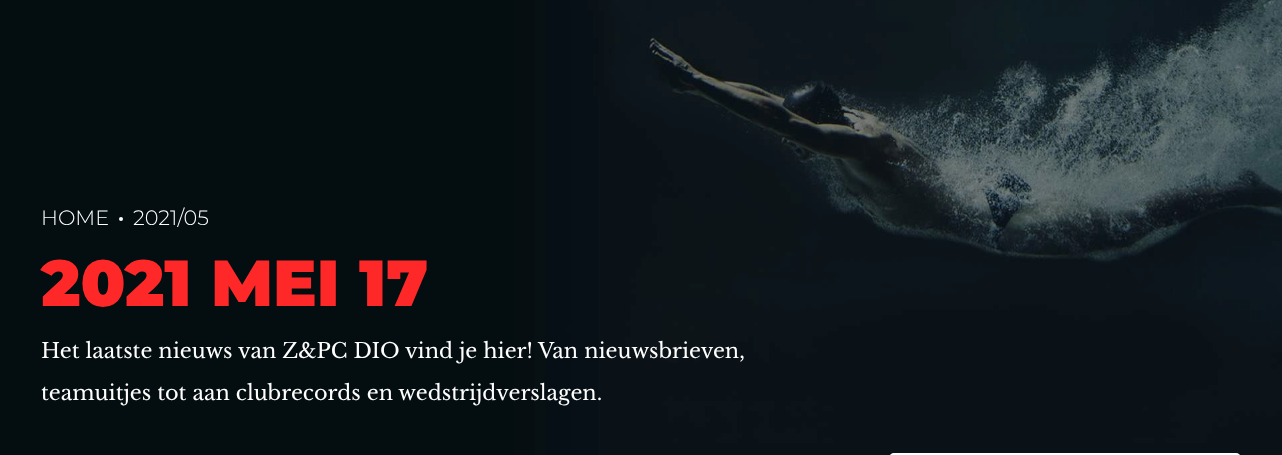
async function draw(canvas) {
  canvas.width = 1282
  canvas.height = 455
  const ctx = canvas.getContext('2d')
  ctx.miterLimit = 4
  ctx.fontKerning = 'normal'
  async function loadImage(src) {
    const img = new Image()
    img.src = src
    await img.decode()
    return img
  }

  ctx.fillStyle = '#fff'
  ctx.fillRect(0, 0, 1282, 455)
  ctx.drawImage(await loadImage('image0.png'), 0, 0, 1282, 455)
  ctx.font = '300 20.8px Montserrat'
  ctx.fillText('HOME', 41, 225)
  ctx.beginPath()
  ctx.arc(121, 219, 2, 0, 2 * Math.PI)
  ctx.fill()
  ctx.fillText('2021/05', 133, 225)
  ctx.font = '900 65px Montserrat'
  ctx.fillStyle = '#ff2828'
  ctx.fillText('2021 MEI 17', 41, 306)
  ctx.font = '20.8px Libre Baskerville'
  ctx.fillStyle = '#fff'
  ctx.fillText('Het laatste nieuws van Z&PC DIO vind je hier! Van nieuwsbrieven,', 41, 358)
  ctx.fillText('teamuitjes tot aan clubrecords en wedstrijdverslagen.', 41, 400)
  ctx.beginPath()
  ctx.roundRect(889, 453, 352, 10, 8)
  ctx.fill()
}

draw(document.querySelector('canvas'))
